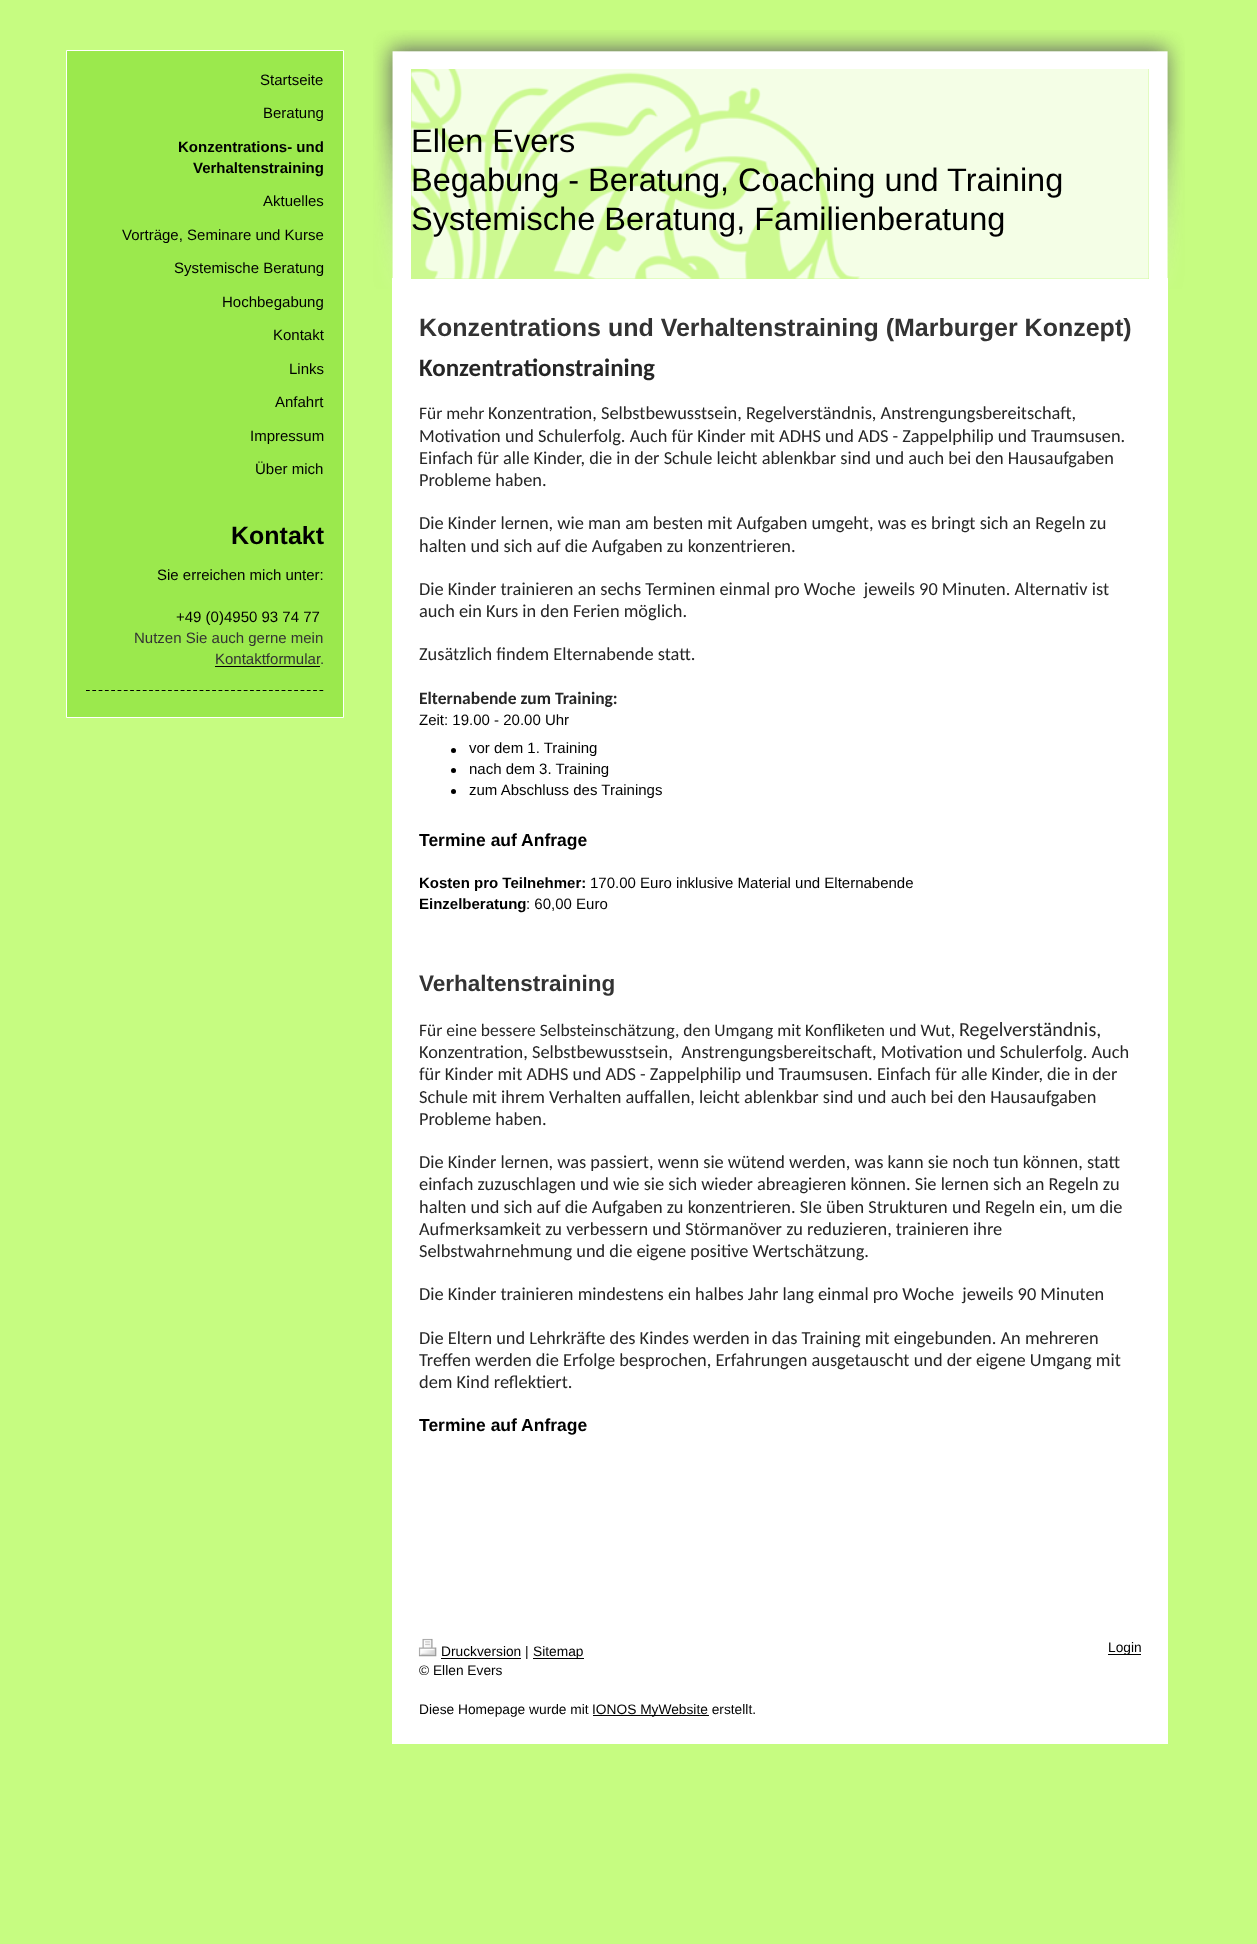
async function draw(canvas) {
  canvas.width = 1257
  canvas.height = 1944
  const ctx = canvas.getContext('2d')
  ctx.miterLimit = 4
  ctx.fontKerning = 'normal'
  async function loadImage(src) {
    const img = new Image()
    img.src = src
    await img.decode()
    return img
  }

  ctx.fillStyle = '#c6fc81'
  ctx.fillRect(0, 0, 1257, 1944)
  ctx.fillStyle = '#9be94d'
  ctx.beginPath()
  ctx.rect(66.5, 50.5, 277, 667)
  ctx.fill()
  ctx.strokeStyle = '#fff'
  ctx.stroke()
  ctx.font = '15px Liberation Sans'
  ctx.fillStyle = '#000'
  ctx.fillText('Startseite', 260, 85)
  ctx.fillText('Beratung', 263, 118)
  ctx.font = 'bold 15px Liberation Sans'
  ctx.fillText('Konzentrations- und', 178, 152)
  ctx.fillText('Verhaltenstraining', 193, 173)
  ctx.font = '15px Liberation Sans'
  ctx.fillText('Aktuelles', 263, 206)
  ctx.fillText('Vorträge, Seminare und Kurse', 122, 240)
  ctx.fillText('Systemische Beratung', 174, 273)
  ctx.fillText('Hochbegabung', 222, 307)
  ctx.fillText('Kontakt', 273, 340)
  ctx.fillText('Links', 289, 374)
  ctx.fillText('Anfahrt', 275, 407)
  ctx.fillText('Impressum', 250, 441)
  ctx.fillText('Über mich', 255, 474)
  ctx.font = 'bold 25px Liberation Sans'
  ctx.fillText('Kontakt', 231, 544)
  ctx.font = '15px Liberation Sans'
  ctx.fillText('Sie erreichen mich unter:', 157, 580)
  ctx.fillText('+49 (0)4950 93 74 77', 176, 622)
  ctx.fillStyle = '#333'
  ctx.fillText('Nutzen Sie auch gerne mein', 134, 643)
  ctx.fillText('Kontaktformular', 215, 664)
  ctx.fillText('.', 320, 664)
  ctx.fillStyle = '#000'
  ctx.fillRect(215, 666, 105, 1)
  ctx.beginPath()
  ctx.moveTo(86, 690.5)
  ctx.lineTo(324, 690.5)
  ctx.strokeStyle = '#000'
  ctx.lineWidth = 1.2
  ctx.setLineDash([3.75, 2.56])
  ctx.stroke()
  ctx.drawImage(await loadImage('image0.png'), 373, 30, 812, 259)
  ctx.fillStyle = '#fff'
  ctx.fillRect(392, 278, 776, 1466)
  ctx.fillStyle = '#ccf990'
  ctx.fillRect(411, 69, 738, 210)
  ctx.drawImage(await loadImage('image1.png'), 411, 69, 738, 210)
  ctx.font = '32.5px Liberation Sans'
  ctx.fillStyle = '#000'
  ctx.fillText('Ellen Evers', 411, 152)
  ctx.fillText('Begabung - Beratung, Coaching und Training', 411, 191)
  ctx.fillText('Systemische Beratung, Familienberatung', 411, 230)
  ctx.font = 'bold 25px Liberation Sans'
  ctx.fillStyle = '#333'
  ctx.fillText('Konzentrations und Verhaltenstraining (Marburger Konzept)', 419, 336)
  ctx.font = 'bold 25px Carlito'
  ctx.fillStyle = '#262626'
  ctx.fillText('Konzentrationstraining', 419, 376)
  ctx.font = '17.5px Carlito'
  ctx.fillText('Für mehr', 419, 419)
  ctx.font = '18.35px Carlito'
  ctx.fillText('Konzentration, Selbstbewusstsein, Regelverständnis, Anstrengungsbereitschaft,', 488, 419)
  ctx.fillText('Motivation und Schulerfolg. Auch für Kinder mit ADHS und ADS - Zappelphilip und Traumsusen.', 419, 442)
  ctx.fillText('Einfach für alle Kinder, die in der Schule leicht ablenkbar sind und auch bei den Hausaufgaben', 419, 464)
  ctx.fillText('Probleme haben.', 419, 486)
  ctx.fillText('Die Kinder lernen, wie man am besten mit Aufgaben umgeht, was es bringt sich an Regeln zu', 419, 529)
  ctx.fillText('halten und sich auf die Aufgaben zu konzentrieren.', 419, 552)
  ctx.fillText('Die Kinder trainieren an sechs Terminen einmal pro Woche  jeweils 90 Minuten. Alternativ ist', 419, 595)
  ctx.fillText('auch ein Kurs in den Ferien möglich.', 419, 617)
  ctx.fillText('Zusätzlich findem Elternabende statt.', 419, 660)
  ctx.font = 'bold 17.5px Carlito'
  ctx.fillText('Elternabende zum Training:', 419, 704)
  ctx.font = '15px Liberation Sans'
  ctx.fillStyle = '#000'
  ctx.fillText('Zeit: 19.00 - 20.00 Uhr', 419, 725)
  ctx.beginPath()
  ctx.arc(453.5, 750.5, 2.5, 0, 2 * Math.PI)
  ctx.fill()
  ctx.fillText('vor dem 1. Training', 469, 753)
  ctx.beginPath()
  ctx.arc(453.5, 770.5, 2.5, 0, 2 * Math.PI)
  ctx.fill()
  ctx.fillText('nach dem 3. Training', 469, 774)
  ctx.beginPath()
  ctx.arc(453.5, 791.5, 2.5, 0, 2 * Math.PI)
  ctx.fill()
  ctx.fillText('zum Abschluss des Trainings', 469, 795)
  ctx.font = 'bold 17.5px Liberation Sans'
  ctx.fillText('Termine auf Anfrage', 419, 846)
  ctx.font = 'bold 15px Liberation Sans'
  ctx.fillText('Kosten pro Teilnehmer:', 419, 888)
  ctx.font = '15px Liberation Sans'
  ctx.fillText('170.00 Euro inklusive Material und Elternabende', 590, 888)
  ctx.font = 'bold 15px Liberation Sans'
  ctx.fillText('Einzelberatung', 419, 909)
  ctx.font = '15px Liberation Sans'
  ctx.fillText(': 60,00 Euro', 526, 909)
  ctx.font = 'bold 22.5px Liberation Sans'
  ctx.fillStyle = '#333'
  ctx.fillText('Verhaltenstraining', 419, 991)
  ctx.font = '17.5px Carlito'
  ctx.fillStyle = '#262626'
  ctx.fillText('Für eine bessere Selbsteinschätzung, den Umgang mit Konfliketen und Wut,', 419, 1036)
  ctx.font = '20px Carlito'
  ctx.fillText('Regelverständnis,', 959, 1036)
  ctx.font = '18.35px Carlito'
  ctx.fillText('Konzentration, Selbstbewusstsein,  Anstrengungsbereitschaft, Motivation und Schulerfolg. Auch', 419, 1058)
  ctx.fillText('für Kinder mit ADHS und ADS - Zappelphilip und Traumsusen. Einfach für alle Kinder, die in der', 419, 1080)
  ctx.fillText('Schule mit ihrem Verhalten auffallen, leicht ablenkbar sind und auch bei den Hausaufgaben', 419, 1103)
  ctx.fillText('Probleme haben.', 419, 1125)
  ctx.fillText('Die Kinder lernen, was passiert, wenn sie wütend werden, was kann sie noch tun können, statt', 419, 1168)
  ctx.fillText('einfach zuzuschlagen und wie sie sich wieder abreagieren können. Sie lernen sich an Regeln zu', 419, 1190)
  ctx.fillText('halten und sich auf die Aufgaben zu konzentrieren. SIe üben Strukturen und Regeln ein, um die', 419, 1213)
  ctx.fillText('Aufmerksamkeit zu verbessern und Störmanöver zu reduzieren, trainieren ihre', 419, 1235)
  ctx.fillText('Selbstwahrnehmung und die eigene positive Wertschätzung.', 419, 1257)
  ctx.fillText('Die Kinder trainieren mindestens ein halbes Jahr lang einmal pro Woche  jeweils 90 Minuten', 419, 1300)
  ctx.fillText('Die Eltern und Lehrkräfte des Kindes werden in das Training mit eingebunden. An mehreren', 419, 1344)
  ctx.fillText('Treffen werden die Erfolge besprochen, Erfahrungen ausgetauscht und der eigene Umgang mit', 419, 1366)
  ctx.fillText('dem Kind reflektiert.', 419, 1388)
  ctx.font = 'bold 17.5px Liberation Sans'
  ctx.fillStyle = '#000'
  ctx.fillText('Termine auf Anfrage', 419, 1431)
  ctx.drawImage(await loadImage('image2.png'), 418, 1638, 19, 19)
  ctx.fillRect(441, 1658, 80, 1)
  ctx.font = '13.75px Liberation Sans'
  ctx.fillText('Druckversion |', 441, 1656)
  ctx.fillRect(533, 1658, 51, 1)
  ctx.fillText('Sitemap', 533, 1656)
  ctx.fillText('© Ellen Evers', 419, 1675)
  ctx.fillText('Diese Homepage wurde mit', 419, 1714)
  ctx.fillRect(593, 1715, 116, 1)
  ctx.fillText('IONOS MyWebsite erstellt.', 592, 1714)
  ctx.fillRect(1108, 1654, 33, 1)
  ctx.fillText('Login', 1108, 1652)
}

draw(document.querySelector('canvas'))
